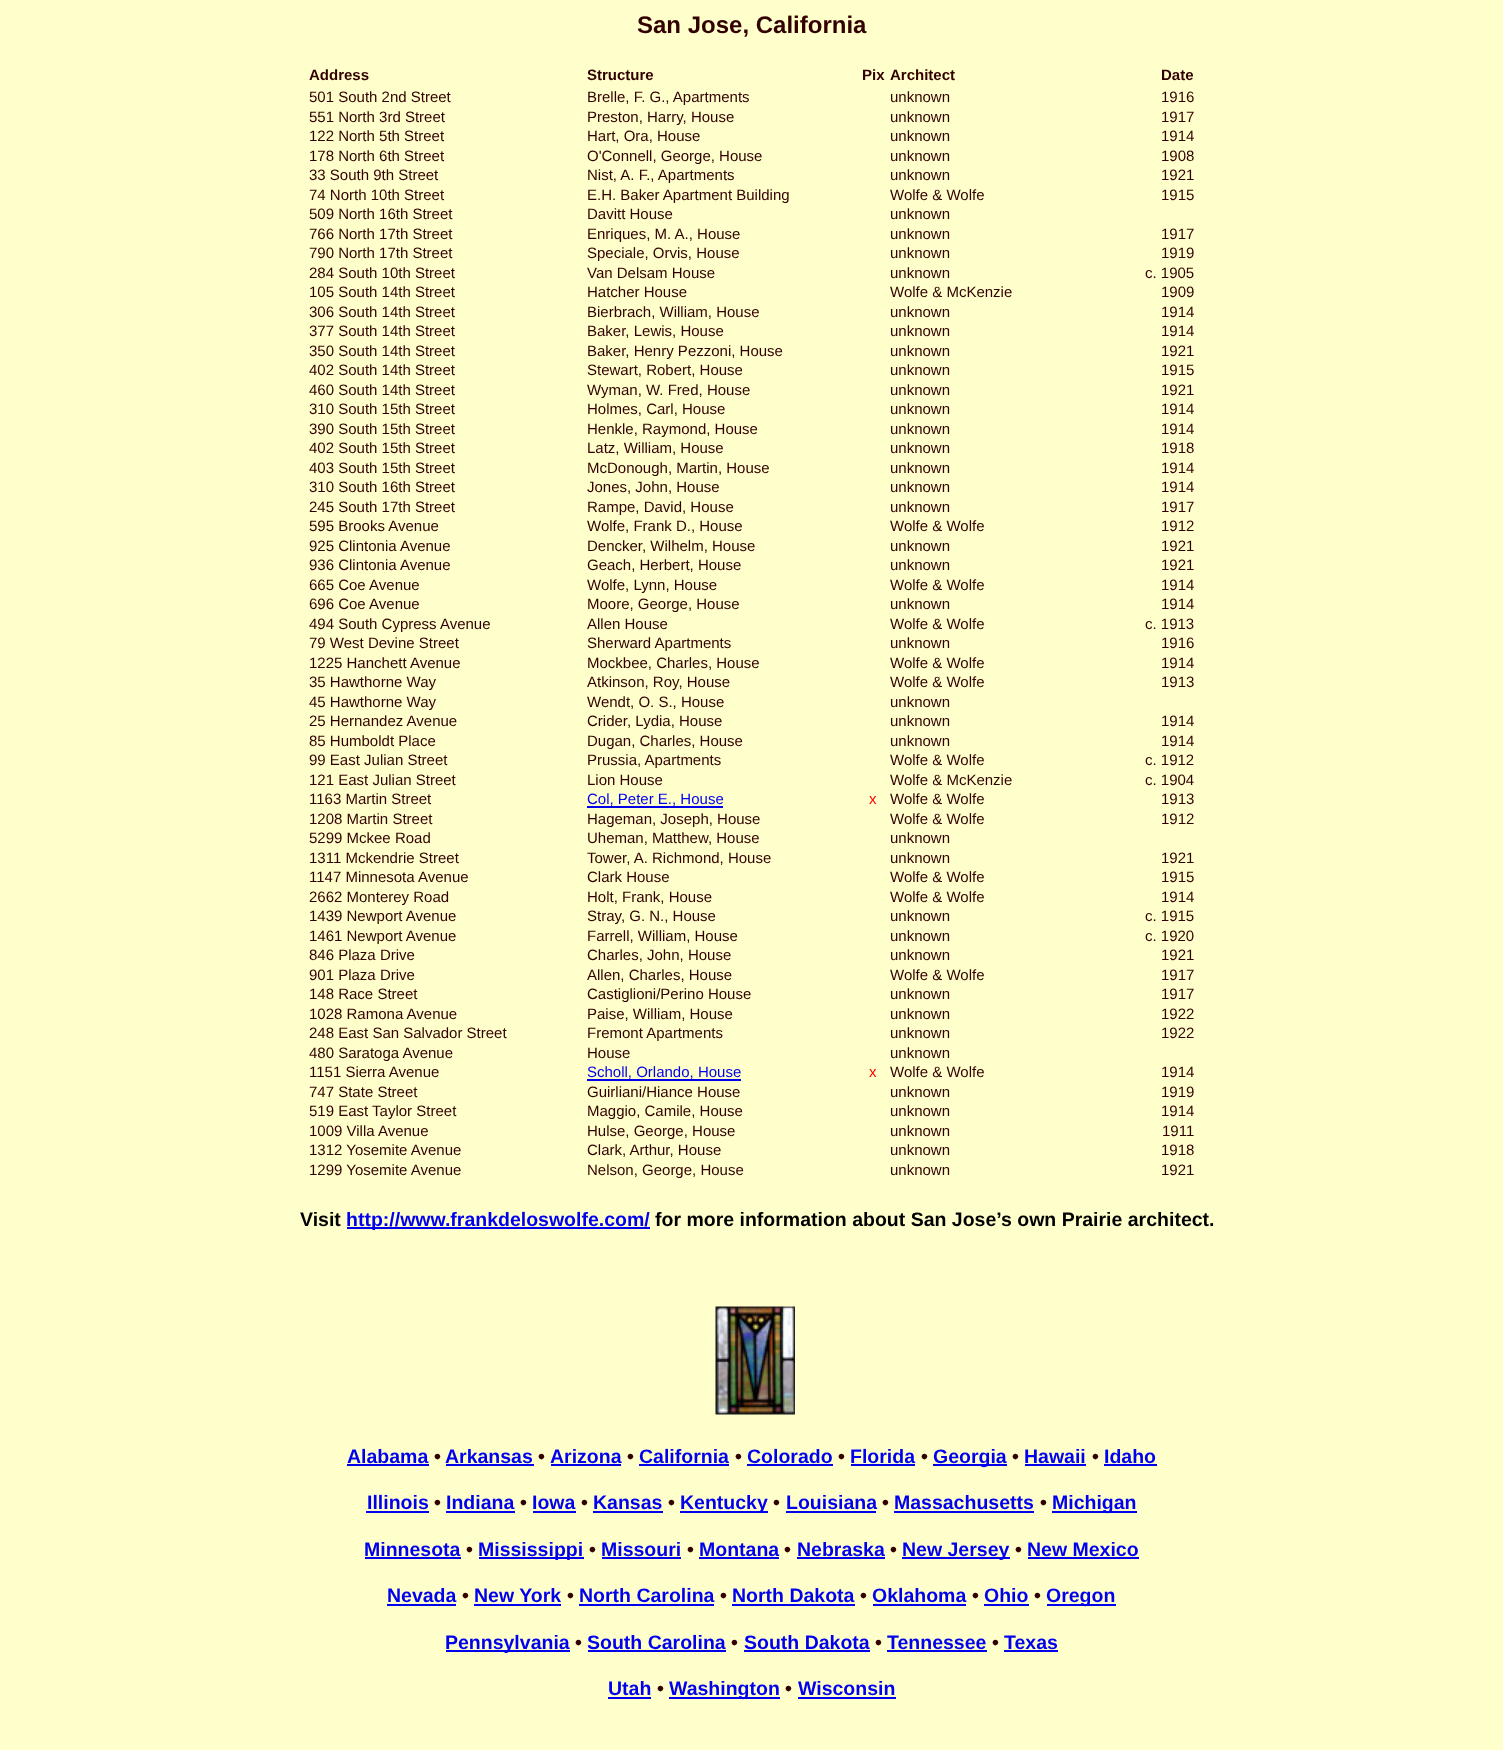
async function draw(canvas) {
  canvas.width = 1503
  canvas.height = 1750
  const ctx = canvas.getContext('2d')
  ctx.miterLimit = 4
  ctx.fontKerning = 'normal'
  async function loadImage(src) {
    const img = new Image()
    img.src = src
    await img.decode()
    return img
  }

  ctx.fillStyle = '#ffc'
  ctx.fillRect(0, 0, 1503, 1750)
  ctx.font = 'bold 24px Liberation Sans'
  ctx.fillStyle = '#300'
  ctx.fillText('San Jose, California', 637, 33)
  ctx.font = 'bold 15px Liberation Sans'
  ctx.fillText('Address', 309, 80)
  ctx.fillText('Structure', 587, 80)
  ctx.fillText('Pix', 862, 80)
  ctx.fillText('Architect', 890, 80)
  ctx.fillText('Date', 1161, 80)
  ctx.font = '15px Liberation Sans'
  ctx.fillText('501 South 2nd Street', 309, 102)
  ctx.fillText('Brelle, F. G., Apartments', 587, 102)
  ctx.fillText('unknown', 890, 102)
  ctx.fillText('1916', 1161, 102)
  ctx.fillText('551 North 3rd Street', 309, 122)
  ctx.fillText('Preston, Harry, House', 587, 122)
  ctx.fillText('unknown', 890, 122)
  ctx.fillText('1917', 1161, 122)
  ctx.fillText('122 North 5th Street', 309, 141)
  ctx.fillText('Hart, Ora, House', 587, 141)
  ctx.fillText('unknown', 890, 141)
  ctx.fillText('1914', 1161, 141)
  ctx.fillText('178 North 6th Street', 309, 161)
  ctx.fillText('O\'Connell, George, House', 587, 161)
  ctx.fillText('unknown', 890, 161)
  ctx.fillText('1908', 1161, 161)
  ctx.fillText('33 South 9th Street', 309, 180)
  ctx.fillText('Nist, A. F., Apartments', 587, 180)
  ctx.fillText('unknown', 890, 180)
  ctx.fillText('1921', 1161, 180)
  ctx.fillText('74 North 10th Street', 309, 200)
  ctx.fillText('E.H. Baker Apartment Building', 587, 200)
  ctx.fillText('Wolfe & Wolfe', 890, 200)
  ctx.fillText('1915', 1161, 200)
  ctx.fillText('509 North 16th Street', 309, 219)
  ctx.fillText('Davitt House', 587, 219)
  ctx.fillText('unknown', 890, 219)
  ctx.fillText('766 North 17th Street', 309, 239)
  ctx.fillText('Enriques, M. A., House', 587, 239)
  ctx.fillText('unknown', 890, 239)
  ctx.fillText('1917', 1161, 239)
  ctx.fillText('790 North 17th Street', 309, 258)
  ctx.fillText('Speciale, Orvis, House', 587, 258)
  ctx.fillText('unknown', 890, 258)
  ctx.fillText('1919', 1161, 258)
  ctx.fillText('284 South 10th Street', 309, 278)
  ctx.fillText('Van Delsam House', 587, 278)
  ctx.fillText('unknown', 890, 278)
  ctx.fillText('c. 1905', 1145, 278)
  ctx.fillText('105 South 14th Street', 309, 297)
  ctx.fillText('Hatcher House', 587, 297)
  ctx.fillText('Wolfe & McKenzie', 890, 297)
  ctx.fillText('1909', 1161, 297)
  ctx.fillText('306 South 14th Street', 309, 317)
  ctx.fillText('Bierbrach, William, House', 587, 317)
  ctx.fillText('unknown', 890, 317)
  ctx.fillText('1914', 1161, 317)
  ctx.fillText('377 South 14th Street', 309, 336)
  ctx.fillText('Baker, Lewis, House', 587, 336)
  ctx.fillText('unknown', 890, 336)
  ctx.fillText('1914', 1161, 336)
  ctx.fillText('350 South 14th Street', 309, 356)
  ctx.fillText('Baker, Henry Pezzoni, House', 587, 356)
  ctx.fillText('unknown', 890, 356)
  ctx.fillText('1921', 1161, 356)
  ctx.fillText('402 South 14th Street', 309, 375)
  ctx.fillText('Stewart, Robert, House', 587, 375)
  ctx.fillText('unknown', 890, 375)
  ctx.fillText('1915', 1161, 375)
  ctx.fillText('460 South 14th Street', 309, 395)
  ctx.fillText('Wyman, W. Fred, House', 587, 395)
  ctx.fillText('unknown', 890, 395)
  ctx.fillText('1921', 1161, 395)
  ctx.fillText('310 South 15th Street', 309, 414)
  ctx.fillText('Holmes, Carl, House', 587, 414)
  ctx.fillText('unknown', 890, 414)
  ctx.fillText('1914', 1161, 414)
  ctx.fillText('390 South 15th Street', 309, 434)
  ctx.fillText('Henkle, Raymond, House', 587, 434)
  ctx.fillText('unknown', 890, 434)
  ctx.fillText('1914', 1161, 434)
  ctx.fillText('402 South 15th Street', 309, 453)
  ctx.fillText('Latz, William, House', 587, 453)
  ctx.fillText('unknown', 890, 453)
  ctx.fillText('1918', 1161, 453)
  ctx.fillText('403 South 15th Street', 309, 473)
  ctx.fillText('McDonough, Martin, House', 587, 473)
  ctx.fillText('unknown', 890, 473)
  ctx.fillText('1914', 1161, 473)
  ctx.fillText('310 South 16th Street', 309, 492)
  ctx.fillText('Jones, John, House', 587, 492)
  ctx.fillText('unknown', 890, 492)
  ctx.fillText('1914', 1161, 492)
  ctx.fillText('245 South 17th Street', 309, 512)
  ctx.fillText('Rampe, David, House', 587, 512)
  ctx.fillText('unknown', 890, 512)
  ctx.fillText('1917', 1161, 512)
  ctx.fillText('595 Brooks Avenue', 309, 531)
  ctx.fillText('Wolfe, Frank D., House', 587, 531)
  ctx.fillText('Wolfe & Wolfe', 890, 531)
  ctx.fillText('1912', 1161, 531)
  ctx.fillText('925 Clintonia Avenue', 309, 551)
  ctx.fillText('Dencker, Wilhelm, House', 587, 551)
  ctx.fillText('unknown', 890, 551)
  ctx.fillText('1921', 1161, 551)
  ctx.fillText('936 Clintonia Avenue', 309, 570)
  ctx.fillText('Geach, Herbert, House', 587, 570)
  ctx.fillText('unknown', 890, 570)
  ctx.fillText('1921', 1161, 570)
  ctx.fillText('665 Coe Avenue', 309, 590)
  ctx.fillText('Wolfe, Lynn, House', 587, 590)
  ctx.fillText('Wolfe & Wolfe', 890, 590)
  ctx.fillText('1914', 1161, 590)
  ctx.fillText('696 Coe Avenue', 309, 609)
  ctx.fillText('Moore, George, House', 587, 609)
  ctx.fillText('unknown', 890, 609)
  ctx.fillText('1914', 1161, 609)
  ctx.fillText('494 South Cypress Avenue', 309, 629)
  ctx.fillText('Allen House', 587, 629)
  ctx.fillText('Wolfe & Wolfe', 890, 629)
  ctx.fillText('c. 1913', 1145, 629)
  ctx.fillText('79 West Devine Street', 309, 648)
  ctx.fillText('Sherward Apartments', 587, 648)
  ctx.fillText('unknown', 890, 648)
  ctx.fillText('1916', 1161, 648)
  ctx.fillText('1225 Hanchett Avenue', 309, 668)
  ctx.fillText('Mockbee, Charles, House', 587, 668)
  ctx.fillText('Wolfe & Wolfe', 890, 668)
  ctx.fillText('1914', 1161, 668)
  ctx.fillText('35 Hawthorne Way', 309, 687)
  ctx.fillText('Atkinson, Roy, House', 587, 687)
  ctx.fillText('Wolfe & Wolfe', 890, 687)
  ctx.fillText('1913', 1161, 687)
  ctx.fillText('45 Hawthorne Way', 309, 707)
  ctx.fillText('Wendt, O. S., House', 587, 707)
  ctx.fillText('unknown', 890, 707)
  ctx.fillText('25 Hernandez Avenue', 309, 726)
  ctx.fillText('Crider, Lydia, House', 587, 726)
  ctx.fillText('unknown', 890, 726)
  ctx.fillText('1914', 1161, 726)
  ctx.fillText('85 Humboldt Place', 309, 746)
  ctx.fillText('Dugan, Charles, House', 587, 746)
  ctx.fillText('unknown', 890, 746)
  ctx.fillText('1914', 1161, 746)
  ctx.fillText('99 East Julian Street', 309, 765)
  ctx.fillText('Prussia, Apartments', 587, 765)
  ctx.fillText('Wolfe & Wolfe', 890, 765)
  ctx.fillText('c. 1912', 1145, 765)
  ctx.fillText('121 East Julian Street', 309, 785)
  ctx.fillText('Lion House', 587, 785)
  ctx.fillText('Wolfe & McKenzie', 890, 785)
  ctx.fillText('c. 1904', 1145, 785)
  ctx.fillText('1163 Martin Street', 309, 804)
  ctx.fillStyle = '#00e'
  ctx.fillText('Col, Peter E., House', 587, 804)
  ctx.fillRect(587, 806, 136, 2)
  ctx.fillStyle = '#f00'
  ctx.fillText('x', 869, 804)
  ctx.fillStyle = '#300'
  ctx.fillText('Wolfe & Wolfe', 890, 804)
  ctx.fillText('1913', 1161, 804)
  ctx.fillText('1208 Martin Street', 309, 824)
  ctx.fillText('Hageman, Joseph, House', 587, 824)
  ctx.fillText('Wolfe & Wolfe', 890, 824)
  ctx.fillText('1912', 1161, 824)
  ctx.fillText('5299 Mckee Road', 309, 843)
  ctx.fillText('Uheman, Matthew, House', 587, 843)
  ctx.fillText('unknown', 890, 843)
  ctx.fillText('1311 Mckendrie Street', 309, 863)
  ctx.fillText('Tower, A. Richmond, House', 587, 863)
  ctx.fillText('unknown', 890, 863)
  ctx.fillText('1921', 1161, 863)
  ctx.fillText('1147 Minnesota Avenue', 309, 882)
  ctx.fillText('Clark House', 587, 882)
  ctx.fillText('Wolfe & Wolfe', 890, 882)
  ctx.fillText('1915', 1161, 882)
  ctx.fillText('2662 Monterey Road', 309, 902)
  ctx.fillText('Holt, Frank, House', 587, 902)
  ctx.fillText('Wolfe & Wolfe', 890, 902)
  ctx.fillText('1914', 1161, 902)
  ctx.fillText('1439 Newport Avenue', 309, 921)
  ctx.fillText('Stray, G. N., House', 587, 921)
  ctx.fillText('unknown', 890, 921)
  ctx.fillText('c. 1915', 1145, 921)
  ctx.fillText('1461 Newport Avenue', 309, 941)
  ctx.fillText('Farrell, William, House', 587, 941)
  ctx.fillText('unknown', 890, 941)
  ctx.fillText('c. 1920', 1145, 941)
  ctx.fillText('846 Plaza Drive', 309, 960)
  ctx.fillText('Charles, John, House', 587, 960)
  ctx.fillText('unknown', 890, 960)
  ctx.fillText('1921', 1161, 960)
  ctx.fillText('901 Plaza Drive', 309, 980)
  ctx.fillText('Allen, Charles, House', 587, 980)
  ctx.fillText('Wolfe & Wolfe', 890, 980)
  ctx.fillText('1917', 1161, 980)
  ctx.fillText('148 Race Street', 309, 999)
  ctx.fillText('Castiglioni/Perino House', 587, 999)
  ctx.fillText('unknown', 890, 999)
  ctx.fillText('1917', 1161, 999)
  ctx.fillText('1028 Ramona Avenue', 309, 1019)
  ctx.fillText('Paise, William, House', 587, 1019)
  ctx.fillText('unknown', 890, 1019)
  ctx.fillText('1922', 1161, 1019)
  ctx.fillText('248 East San Salvador Street', 309, 1038)
  ctx.fillText('Fremont Apartments', 587, 1038)
  ctx.fillText('unknown', 890, 1038)
  ctx.fillText('1922', 1161, 1038)
  ctx.fillText('480 Saratoga Avenue', 309, 1058)
  ctx.fillText('House', 587, 1058)
  ctx.fillText('unknown', 890, 1058)
  ctx.fillText('1151 Sierra Avenue', 309, 1077)
  ctx.fillStyle = '#00e'
  ctx.fillText('Scholl, Orlando, House', 587, 1077)
  ctx.fillRect(587, 1079, 154, 2)
  ctx.fillStyle = '#f00'
  ctx.fillText('x', 869, 1077)
  ctx.fillStyle = '#300'
  ctx.fillText('Wolfe & Wolfe', 890, 1077)
  ctx.fillText('1914', 1161, 1077)
  ctx.fillText('747 State Street', 309, 1097)
  ctx.fillText('Guirliani/Hiance House', 587, 1097)
  ctx.fillText('unknown', 890, 1097)
  ctx.fillText('1919', 1161, 1097)
  ctx.fillText('519 East Taylor Street', 309, 1116)
  ctx.fillText('Maggio, Camile, House', 587, 1116)
  ctx.fillText('unknown', 890, 1116)
  ctx.fillText('1914', 1161, 1116)
  ctx.fillText('1009 Villa Avenue', 309, 1136)
  ctx.fillText('Hulse, George, House', 587, 1136)
  ctx.fillText('unknown', 890, 1136)
  ctx.fillText('1911', 1162, 1136)
  ctx.fillText('1312 Yosemite Avenue', 309, 1155)
  ctx.fillText('Clark, Arthur, House', 587, 1155)
  ctx.fillText('unknown', 890, 1155)
  ctx.fillText('1918', 1161, 1155)
  ctx.fillText('1299 Yosemite Avenue', 309, 1175)
  ctx.fillText('Nelson, George, House', 587, 1175)
  ctx.fillText('unknown', 890, 1175)
  ctx.fillText('1921', 1161, 1175)
  ctx.font = 'bold 19.5px Liberation Sans'
  ctx.fillStyle = '#000'
  ctx.fillText('Visit', 300, 1226)
  ctx.fillStyle = '#00e'
  ctx.fillRect(347, 1227, 303, 2)
  ctx.fillText('http://www.frankdeloswolfe.com/', 346, 1226)
  ctx.fillStyle = '#000'
  ctx.fillText('for more information about San Jose’s own Prairie architect.', 655, 1226)
  ctx.drawImage(await loadImage('image0.png'), 715, 1306, 80, 109)
  ctx.fillStyle = '#00e'
  ctx.fillText('Alabama', 347, 1463)
  ctx.fillRect(347, 1464, 82, 2)
  ctx.fillStyle = '#300'
  ctx.fillText('•', 434, 1463)
  ctx.fillStyle = '#00e'
  ctx.fillText('Arkansas', 445, 1463)
  ctx.fillRect(446, 1464, 88, 2)
  ctx.fillStyle = '#300'
  ctx.fillText('•', 538, 1463)
  ctx.fillStyle = '#00e'
  ctx.fillText('Arizona', 550, 1463)
  ctx.fillRect(551, 1464, 70, 2)
  ctx.fillStyle = '#300'
  ctx.fillText('•', 627, 1463)
  ctx.fillStyle = '#00e'
  ctx.fillText('California', 639, 1463)
  ctx.fillRect(639, 1464, 90, 2)
  ctx.fillStyle = '#300'
  ctx.fillText('•', 735, 1463)
  ctx.fillStyle = '#00e'
  ctx.fillText('Colorado', 747, 1463)
  ctx.fillRect(747, 1464, 86, 2)
  ctx.fillStyle = '#300'
  ctx.fillText('•', 838, 1463)
  ctx.fillStyle = '#00e'
  ctx.fillText('Florida', 850, 1463)
  ctx.fillRect(851, 1464, 64, 2)
  ctx.fillStyle = '#300'
  ctx.fillText('•', 921, 1463)
  ctx.fillStyle = '#00e'
  ctx.fillRect(933, 1464, 74, 2)
  ctx.fillText('Georgia', 933, 1463)
  ctx.fillStyle = '#300'
  ctx.fillText('•', 1012, 1463)
  ctx.fillStyle = '#00e'
  ctx.fillText('Hawaii', 1024, 1463)
  ctx.fillRect(1025, 1464, 61, 2)
  ctx.fillStyle = '#300'
  ctx.fillText('•', 1092, 1463)
  ctx.fillStyle = '#00e'
  ctx.fillText('Idaho', 1104, 1463)
  ctx.fillRect(1104, 1464, 53, 2)
  ctx.fillText('Illinois', 367, 1509)
  ctx.fillRect(366, 1511, 63, 2)
  ctx.fillStyle = '#300'
  ctx.fillText('•', 434, 1509)
  ctx.fillStyle = '#00e'
  ctx.fillText('Indiana', 446, 1509)
  ctx.fillRect(446, 1511, 69, 2)
  ctx.fillStyle = '#300'
  ctx.fillText('•', 520, 1509)
  ctx.fillStyle = '#00e'
  ctx.fillText('Iowa', 532, 1509)
  ctx.fillRect(533, 1511, 43, 2)
  ctx.fillStyle = '#300'
  ctx.fillText('•', 581, 1509)
  ctx.fillStyle = '#00e'
  ctx.fillText('Kansas', 593, 1509)
  ctx.fillRect(593, 1511, 70, 2)
  ctx.fillStyle = '#300'
  ctx.fillText('•', 668, 1509)
  ctx.fillStyle = '#00e'
  ctx.fillRect(680, 1511, 88, 2)
  ctx.fillText('Kentucky', 680, 1509)
  ctx.fillStyle = '#300'
  ctx.fillText('•', 773, 1509)
  ctx.fillStyle = '#00e'
  ctx.fillText('Louisiana', 786, 1509)
  ctx.fillRect(786, 1511, 90, 2)
  ctx.fillStyle = '#300'
  ctx.fillText('•', 882, 1509)
  ctx.fillStyle = '#00e'
  ctx.fillText('Massachusetts', 894, 1509)
  ctx.fillRect(894, 1511, 140, 2)
  ctx.fillStyle = '#300'
  ctx.fillText('•', 1040, 1509)
  ctx.fillStyle = '#00e'
  ctx.fillRect(1052, 1511, 85, 2)
  ctx.fillText('Michigan', 1052, 1509)
  ctx.fillText('Minnesota', 364, 1556)
  ctx.fillRect(365, 1557, 96, 2)
  ctx.fillStyle = '#300'
  ctx.fillText('•', 466, 1556)
  ctx.fillStyle = '#00e'
  ctx.fillRect(479, 1557, 105, 2)
  ctx.fillText('Mississippi', 478, 1556)
  ctx.fillStyle = '#300'
  ctx.fillText('•', 589, 1556)
  ctx.fillStyle = '#00e'
  ctx.fillText('Missouri', 601, 1556)
  ctx.fillRect(602, 1557, 79, 2)
  ctx.fillStyle = '#300'
  ctx.fillText('•', 687, 1556)
  ctx.fillStyle = '#00e'
  ctx.fillText('Montana', 699, 1556)
  ctx.fillRect(699, 1557, 80, 2)
  ctx.fillStyle = '#300'
  ctx.fillText('•', 784, 1556)
  ctx.fillStyle = '#00e'
  ctx.fillText('Nebraska', 797, 1556)
  ctx.fillRect(797, 1557, 88, 2)
  ctx.fillStyle = '#300'
  ctx.fillText('•', 890, 1556)
  ctx.fillStyle = '#00e'
  ctx.fillRect(902, 1557, 108, 2)
  ctx.fillText('New Jersey', 902, 1556)
  ctx.fillStyle = '#300'
  ctx.fillText('•', 1015, 1556)
  ctx.fillStyle = '#00e'
  ctx.fillText('New Mexico', 1027, 1556)
  ctx.fillRect(1028, 1557, 111, 2)
  ctx.fillText('Nevada', 387, 1602)
  ctx.fillRect(387, 1604, 69, 2)
  ctx.fillStyle = '#300'
  ctx.fillText('•', 462, 1602)
  ctx.fillStyle = '#00e'
  ctx.fillText('New York', 474, 1602)
  ctx.fillRect(474, 1604, 87, 2)
  ctx.fillStyle = '#300'
  ctx.fillText('•', 567, 1602)
  ctx.fillStyle = '#00e'
  ctx.fillText('North Carolina', 579, 1602)
  ctx.fillRect(579, 1604, 135, 2)
  ctx.fillStyle = '#300'
  ctx.fillText('•', 720, 1602)
  ctx.fillStyle = '#00e'
  ctx.fillText('North Dakota', 732, 1602)
  ctx.fillRect(732, 1604, 123, 2)
  ctx.fillStyle = '#300'
  ctx.fillText('•', 860, 1602)
  ctx.fillStyle = '#00e'
  ctx.fillText('Oklahoma', 872, 1602)
  ctx.fillRect(873, 1604, 93, 2)
  ctx.fillStyle = '#300'
  ctx.fillText('•', 972, 1602)
  ctx.fillStyle = '#00e'
  ctx.fillText('Ohio', 984, 1602)
  ctx.fillRect(984, 1604, 45, 2)
  ctx.fillStyle = '#300'
  ctx.fillText('•', 1034, 1602)
  ctx.fillStyle = '#00e'
  ctx.fillRect(1047, 1604, 69, 2)
  ctx.fillText('Oregon', 1046, 1602)
  ctx.fillRect(446, 1650, 124, 2)
  ctx.fillText('Pennsylvania', 445, 1649)
  ctx.fillStyle = '#300'
  ctx.fillText('•', 575, 1649)
  ctx.fillStyle = '#00e'
  ctx.fillText('South Carolina', 587, 1649)
  ctx.fillRect(588, 1650, 138, 2)
  ctx.fillStyle = '#300'
  ctx.fillText('•', 731, 1649)
  ctx.fillStyle = '#00e'
  ctx.fillText('South Dakota', 744, 1649)
  ctx.fillRect(744, 1650, 126, 2)
  ctx.fillStyle = '#300'
  ctx.fillText('•', 875, 1649)
  ctx.fillStyle = '#00e'
  ctx.fillText('Tennessee', 887, 1649)
  ctx.fillRect(887, 1650, 100, 2)
  ctx.fillStyle = '#300'
  ctx.fillText('•', 992, 1649)
  ctx.fillStyle = '#00e'
  ctx.fillText('Texas', 1004, 1649)
  ctx.fillRect(1004, 1650, 54, 2)
  ctx.fillText('Utah', 608, 1695)
  ctx.fillRect(608, 1697, 43, 2)
  ctx.fillStyle = '#300'
  ctx.fillText('•', 657, 1695)
  ctx.fillStyle = '#00e'
  ctx.fillRect(669, 1697, 111, 2)
  ctx.fillText('Washington', 669, 1695)
  ctx.fillStyle = '#300'
  ctx.fillText('•', 785, 1695)
  ctx.fillStyle = '#00e'
  ctx.fillText('Wisconsin', 798, 1695)
  ctx.fillRect(798, 1697, 98, 2)
}

draw(document.querySelector('canvas'))
